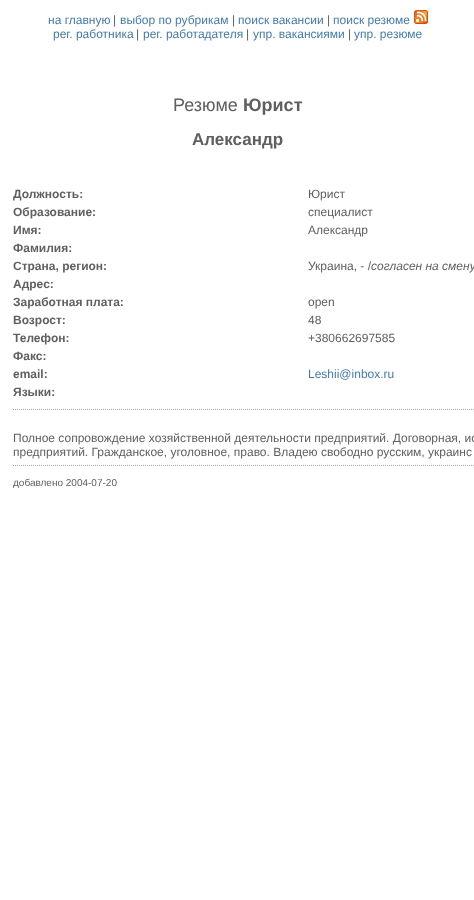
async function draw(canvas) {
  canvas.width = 474
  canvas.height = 900
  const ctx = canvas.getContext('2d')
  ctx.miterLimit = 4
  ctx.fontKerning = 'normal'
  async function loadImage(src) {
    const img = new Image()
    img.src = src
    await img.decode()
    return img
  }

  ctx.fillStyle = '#fff'
  ctx.fillRect(0, 0, 474, 900)
  ctx.font = '12px Liberation Sans'
  ctx.fillStyle = '#457baa'
  ctx.fillText('на главную', 48, 24)
  ctx.fillStyle = '#5f5f5f'
  ctx.fillText('|', 113, 24)
  ctx.fillStyle = '#457baa'
  ctx.fillText('выбор по рубрикам', 120, 24)
  ctx.fillStyle = '#5f5f5f'
  ctx.fillText('|', 232, 24)
  ctx.fillStyle = '#457baa'
  ctx.fillText('поиск вакансии', 238, 24)
  ctx.fillStyle = '#5f5f5f'
  ctx.fillText('|', 327, 24)
  ctx.fillStyle = '#457baa'
  ctx.fillText('поиск резюме', 333, 24)
  ctx.drawImage(await loadImage('image0.png'), 414, 10, 14, 14)
  ctx.fillText('рег. работника', 53, 38)
  ctx.fillStyle = '#5f5f5f'
  ctx.fillText('|', 136, 38)
  ctx.fillStyle = '#457baa'
  ctx.fillText('рег. работадателя', 143, 38)
  ctx.fillStyle = '#5f5f5f'
  ctx.fillText('|', 246, 38)
  ctx.fillStyle = '#457baa'
  ctx.fillText('упр. вакансиями', 253, 38)
  ctx.fillStyle = '#5f5f5f'
  ctx.fillText('|', 348, 38)
  ctx.fillStyle = '#457baa'
  ctx.fillText('упр. резюме', 354, 38)
  ctx.font = '18px Liberation Sans'
  ctx.fillStyle = '#5f5f5f'
  ctx.fillText('Резюме', 173, 111)
  ctx.font = 'bold 18px Liberation Sans'
  ctx.fillText('Юрист', 243, 111)
  ctx.font = 'bold 17px Liberation Sans'
  ctx.fillText('Александр', 192, 145)
  ctx.font = 'bold 12px Liberation Sans'
  ctx.fillText('Должность:', 13, 198)
  ctx.font = '12px Liberation Sans'
  ctx.fillText('Юрист', 308, 198)
  ctx.font = 'bold 12px Liberation Sans'
  ctx.fillText('Образование:', 13, 216)
  ctx.font = '12px Liberation Sans'
  ctx.fillText('специалист', 308, 216)
  ctx.font = 'bold 12px Liberation Sans'
  ctx.fillText('Имя:', 13, 234)
  ctx.font = '12px Liberation Sans'
  ctx.fillText('Александр', 308, 234)
  ctx.font = 'bold 12px Liberation Sans'
  ctx.fillText('Фамилия:', 13, 252)
  ctx.fillText('Страна, регион:', 13, 270)
  ctx.font = '12px Liberation Sans'
  ctx.fillText('Украина, - /', 308, 270)
  ctx.font = 'italic 12px Liberation Sans'
  ctx.fillText('согласен на смену', 371, 270)
  ctx.font = 'bold 12px Liberation Sans'
  ctx.fillText('Адрес:', 13, 288)
  ctx.fillText('Заработная плата:', 13, 306)
  ctx.font = '12px Liberation Sans'
  ctx.fillText('open', 308, 306)
  ctx.font = 'bold 12px Liberation Sans'
  ctx.fillText('Возрост:', 13, 324)
  ctx.font = '12px Liberation Sans'
  ctx.fillText('48', 308, 324)
  ctx.font = 'bold 12px Liberation Sans'
  ctx.fillText('Телефон:', 13, 342)
  ctx.font = '12px Liberation Sans'
  ctx.fillText('+380662697585', 308, 342)
  ctx.font = 'bold 12px Liberation Sans'
  ctx.fillText('Факс:', 13, 360)
  ctx.fillText('email:', 13, 378)
  ctx.font = '12px Liberation Sans'
  ctx.fillStyle = '#457baa'
  ctx.fillText('Leshii@inbox.ru', 308, 378)
  ctx.font = 'bold 12px Liberation Sans'
  ctx.fillStyle = '#5f5f5f'
  ctx.fillText('Языки:', 13, 396)
  ctx.beginPath()
  ctx.moveTo(13, 409.5)
  ctx.lineTo(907, 409.5)
  ctx.strokeStyle = '#a9a9a9'
  ctx.setLineDash([1, 1])
  ctx.stroke()
  ctx.font = '12px Liberation Sans'
  ctx.fillText('Полное сопровождение хозяйственной деятельности предприятий. Договорная, ис', 13, 442)
  ctx.fillText('предприятий. Гражданское, уголовное, право. Владею свободно русским, украинс', 13, 456)
  ctx.beginPath()
  ctx.moveTo(13, 465.5)
  ctx.lineTo(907, 465.5)
  ctx.stroke()
  ctx.font = '10px Liberation Sans'
  ctx.fillText('добавлено 2004-07-20', 13, 486)
}

draw(document.querySelector('canvas'))
